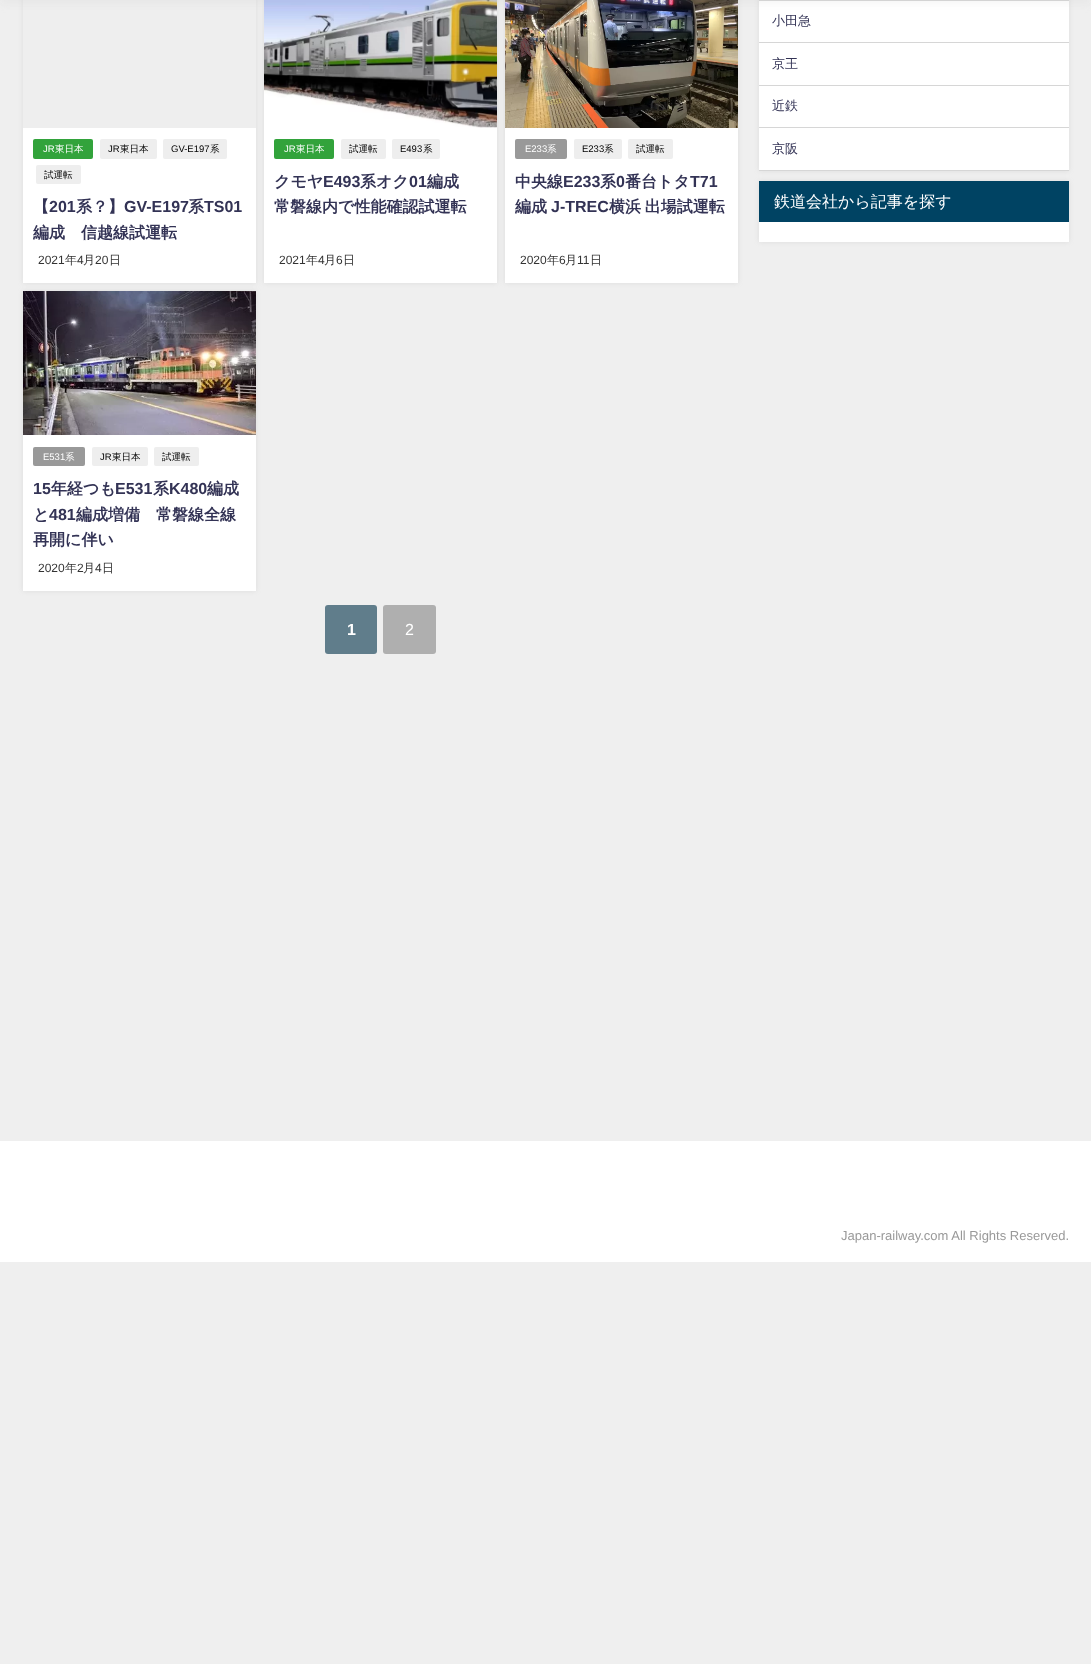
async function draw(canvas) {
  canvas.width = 1091
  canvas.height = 1664
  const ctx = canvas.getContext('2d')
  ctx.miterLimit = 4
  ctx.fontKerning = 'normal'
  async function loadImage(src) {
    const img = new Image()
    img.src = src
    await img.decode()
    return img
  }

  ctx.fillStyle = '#efefef'
  ctx.fillRect(0, 0, 1091, 1664)
  ctx.fillStyle = '#96969633'
  ctx.filter = 'blur(2.5px)'
  ctx.beginPath()
  ctx.rect(759, -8, 310, 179)
  ctx.fill()
  ctx.filter = 'none'
  ctx.fillStyle = '#fff'
  ctx.fillRect(759, 1, 310, 169)
  ctx.fillStyle = '#d6d6d6'
  ctx.fillRect(759, 0, 310, 1)
  ctx.fillStyle = '#96969633'
  ctx.filter = 'blur(2.5px)'
  ctx.beginPath()
  ctx.rect(23, -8, 233, 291)
  ctx.fill()
  ctx.filter = 'none'
  ctx.fillStyle = '#eee'
  ctx.fillRect(23, 0, 233, 128)
  ctx.fillStyle = '#fff'
  ctx.fillRect(23, 128, 233, 155)
  ctx.fillStyle = '#96969633'
  ctx.filter = 'blur(2.5px)'
  ctx.beginPath()
  ctx.rect(264, -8, 233, 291)
  ctx.fill()
  ctx.filter = 'none'
  ctx.drawImage(await loadImage('image0.png'), 264, 0, 233, 128)
  ctx.fillStyle = '#fff'
  ctx.fillRect(264, 128, 233, 155)
  ctx.fillStyle = '#96969633'
  ctx.filter = 'blur(2.5px)'
  ctx.beginPath()
  ctx.rect(505, -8, 233, 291)
  ctx.fill()
  ctx.filter = 'none'
  ctx.drawImage(await loadImage('image1.png'), 505, 0, 233, 128)
  ctx.fillStyle = '#c8c8c833'
  ctx.filter = 'blur(5px)'
  ctx.beginPath()
  ctx.rect(0, -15, 1091, 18)
  ctx.fill()
  ctx.filter = 'none'
  ctx.fillStyle = '#d6d6d6'
  ctx.fillRect(759, 42, 310, 1)
  ctx.font = '500 13px WenQuanYi Zen Hei'
  ctx.fillStyle = '#335'
  ctx.fillText('小田急', 772, 25)
  ctx.fillStyle = '#d6d6d6'
  ctx.fillRect(759, 85, 310, 1)
  ctx.fillStyle = '#335'
  ctx.fillText('京王', 772, 68)
  ctx.fillStyle = '#d6d6d6'
  ctx.fillRect(759, 127, 310, 1)
  ctx.fillStyle = '#335'
  ctx.fillText('近鉄', 772, 110)
  ctx.fillStyle = '#d6d6d6'
  ctx.fillRect(759, 170, 310, 1)
  ctx.fillStyle = '#335'
  ctx.fillText('京阪', 772, 153)
  ctx.fillStyle = '#96969633'
  ctx.filter = 'blur(2.5px)'
  ctx.beginPath()
  ctx.rect(759, 181, 310, 61)
  ctx.fill()
  ctx.filter = 'none'
  ctx.fillStyle = '#fff'
  ctx.fillRect(759, 222, 310, 20)
  ctx.fillStyle = '#004363'
  ctx.fillRect(759, 181, 310, 41)
  ctx.font = '500 16px WenQuanYi Zen Hei'
  ctx.fillStyle = '#fff'
  ctx.fillText('鉄道会社から記事を探す', 774, 207)
  ctx.fillStyle = '#32a33b'
  ctx.beginPath()
  ctx.roundRect(33, 139, 60, 20, 2)
  ctx.fill()
  ctx.font = '9.5px Liberation Sans'
  ctx.fillStyle = '#fff'
  ctx.fillText('JR', 43, 152)
  ctx.font = '500 9.5px WenQuanYi Zen Hei'
  ctx.fillText('東日本', 55, 152)
  ctx.fillStyle = '#eee'
  ctx.beginPath()
  ctx.roundRect(100, 139, 57, 20, 2)
  ctx.fill()
  ctx.font = '9.5px Liberation Sans'
  ctx.fillStyle = '#000'
  ctx.fillText('JR', 108, 152)
  ctx.font = '500 9.5px WenQuanYi Zen Hei'
  ctx.fillText('東日本', 120, 152)
  ctx.fillStyle = '#eee'
  ctx.beginPath()
  ctx.roundRect(163, 139, 64, 20, 2)
  ctx.fill()
  ctx.font = '9.5px Liberation Sans'
  ctx.fillStyle = '#000'
  ctx.fillText('GV-E197', 171, 152)
  ctx.font = '500 9.5px WenQuanYi Zen Hei'
  ctx.fillText('系', 210, 152)
  ctx.fillStyle = '#eee'
  ctx.beginPath()
  ctx.roundRect(36, 165, 45, 19, 2)
  ctx.fill()
  ctx.fillStyle = '#000'
  ctx.fillText('試運転', 44, 178)
  ctx.font = 'bold 16px WenQuanYi Zen Hei'
  ctx.fillStyle = '#335'
  ctx.fillText('【', 33, 212)
  ctx.font = 'bold 16px Liberation Sans'
  ctx.fillText('201', 49, 212)
  ctx.font = 'bold 16px WenQuanYi Zen Hei'
  ctx.fillText('系？】', 76, 212)
  ctx.font = 'bold 16px Liberation Sans'
  ctx.fillText('GV-E197', 124, 212)
  ctx.font = 'bold 16px WenQuanYi Zen Hei'
  ctx.fillText('系', 188, 212)
  ctx.font = 'bold 16px Liberation Sans'
  ctx.fillText('TS01', 204, 212)
  ctx.font = 'bold 16px WenQuanYi Zen Hei'
  ctx.fillText('編成　信越線試運転', 33, 238)
  ctx.font = '12px Liberation Sans'
  ctx.fillStyle = '#333'
  ctx.fillText('2021', 38, 264)
  ctx.font = '500 12px WenQuanYi Zen Hei'
  ctx.fillText('年', 65, 264)
  ctx.font = '12px Liberation Sans'
  ctx.fillText('4', 77, 264)
  ctx.font = '500 12px WenQuanYi Zen Hei'
  ctx.fillText('月', 83, 264)
  ctx.font = '12px Liberation Sans'
  ctx.fillText('20', 95, 264)
  ctx.font = '500 12px WenQuanYi Zen Hei'
  ctx.fillText('日', 109, 264)
  ctx.fillStyle = '#32a33b'
  ctx.beginPath()
  ctx.roundRect(274, 139, 60, 20, 2)
  ctx.fill()
  ctx.font = '9.5px Liberation Sans'
  ctx.fillStyle = '#fff'
  ctx.fillText('JR', 284, 152)
  ctx.font = '500 9.5px WenQuanYi Zen Hei'
  ctx.fillText('東日本', 296, 152)
  ctx.fillStyle = '#eee'
  ctx.beginPath()
  ctx.roundRect(341, 139, 45, 20, 2)
  ctx.fill()
  ctx.fillStyle = '#000'
  ctx.fillText('試運転', 349, 152)
  ctx.fillStyle = '#eee'
  ctx.beginPath()
  ctx.roundRect(392, 139, 48, 20, 2)
  ctx.fill()
  ctx.font = '9.5px Liberation Sans'
  ctx.fillStyle = '#000'
  ctx.fillText('E493', 400, 152)
  ctx.font = '500 9.5px WenQuanYi Zen Hei'
  ctx.fillText('系', 423, 152)
  ctx.font = 'bold 16px WenQuanYi Zen Hei'
  ctx.fillStyle = '#335'
  ctx.fillText('クモヤ', 274, 187)
  ctx.font = 'bold 16px Liberation Sans'
  ctx.fillText('E493', 323, 187)
  ctx.font = 'bold 16px WenQuanYi Zen Hei'
  ctx.fillText('系オク', 360, 187)
  ctx.font = 'bold 16px Liberation Sans'
  ctx.fillText('01', 409, 187)
  ctx.font = 'bold 16px WenQuanYi Zen Hei'
  ctx.fillText('編成', 427, 187)
  ctx.fillText('常磐線内で性能確認試運転', 274, 212)
  ctx.font = '12px Liberation Sans'
  ctx.fillStyle = '#333'
  ctx.fillText('2021', 279, 264)
  ctx.font = '500 12px WenQuanYi Zen Hei'
  ctx.fillText('年', 306, 264)
  ctx.font = '12px Liberation Sans'
  ctx.fillText('4', 318, 264)
  ctx.font = '500 12px WenQuanYi Zen Hei'
  ctx.fillText('月', 324, 264)
  ctx.font = '12px Liberation Sans'
  ctx.fillText('6', 336, 264)
  ctx.font = '500 12px WenQuanYi Zen Hei'
  ctx.fillText('日', 343, 264)
  ctx.fillStyle = '#fff'
  ctx.fillRect(505, 128, 233, 155)
  ctx.fillStyle = '#999'
  ctx.beginPath()
  ctx.roundRect(515, 139, 52, 20, 2)
  ctx.fill()
  ctx.font = '9.5px Liberation Sans'
  ctx.fillStyle = '#fff'
  ctx.fillText('E233', 525, 152)
  ctx.font = '500 9.5px WenQuanYi Zen Hei'
  ctx.fillText('系', 547, 152)
  ctx.fillStyle = '#eee'
  ctx.beginPath()
  ctx.roundRect(574, 139, 48, 20, 2)
  ctx.fill()
  ctx.font = '9.5px Liberation Sans'
  ctx.fillStyle = '#000'
  ctx.fillText('E233', 582, 152)
  ctx.font = '500 9.5px WenQuanYi Zen Hei'
  ctx.fillText('系', 604, 152)
  ctx.fillStyle = '#eee'
  ctx.beginPath()
  ctx.roundRect(628, 139, 45, 20, 2)
  ctx.fill()
  ctx.fillStyle = '#000'
  ctx.fillText('試運転', 636, 152)
  ctx.font = 'bold 16px WenQuanYi Zen Hei'
  ctx.fillStyle = '#335'
  ctx.fillText('中央線', 515, 187)
  ctx.font = 'bold 16px Liberation Sans'
  ctx.fillText('E233', 563, 187)
  ctx.font = 'bold 16px WenQuanYi Zen Hei'
  ctx.fillText('系', 600, 187)
  ctx.font = 'bold 16px Liberation Sans'
  ctx.fillText('0', 616, 187)
  ctx.font = 'bold 16px WenQuanYi Zen Hei'
  ctx.fillText('番台トタ', 625, 187)
  ctx.font = 'bold 16px Liberation Sans'
  ctx.fillText('T71', 690, 187)
  ctx.font = 'bold 16px WenQuanYi Zen Hei'
  ctx.fillText('編成', 515, 212)
  ctx.font = 'bold 16px Liberation Sans'
  ctx.fillText('J-TREC', 551, 212)
  ctx.wordSpacing = '-1px'
  ctx.font = 'bold 16px WenQuanYi Zen Hei'
  ctx.fillText('横浜 出場試運転', 609, 212)
  ctx.wordSpacing = '0px'
  ctx.font = '12px Liberation Sans'
  ctx.fillStyle = '#333'
  ctx.fillText('2020', 520, 264)
  ctx.font = '500 12px WenQuanYi Zen Hei'
  ctx.fillText('年', 547, 264)
  ctx.font = '12px Liberation Sans'
  ctx.fillText('6', 559, 264)
  ctx.font = '500 12px WenQuanYi Zen Hei'
  ctx.fillText('月', 565, 264)
  ctx.font = '12px Liberation Sans'
  ctx.fillText('11', 577, 264)
  ctx.font = '500 12px WenQuanYi Zen Hei'
  ctx.fillText('日', 590, 264)
  ctx.fillStyle = '#96969633'
  ctx.filter = 'blur(2.5px)'
  ctx.beginPath()
  ctx.rect(23, 291, 233, 300)
  ctx.fill()
  ctx.filter = 'none'
  ctx.fillStyle = '#fff'
  ctx.fillRect(23, 435, 233, 156)
  ctx.drawImage(await loadImage('image2.png'), 23, 291, 233, 144)
  ctx.fillStyle = '#999'
  ctx.beginPath()
  ctx.roundRect(33, 447, 52, 19, 2)
  ctx.fill()
  ctx.font = '9.5px Liberation Sans'
  ctx.fillStyle = '#fff'
  ctx.fillText('E531', 43, 460)
  ctx.font = '500 9.5px WenQuanYi Zen Hei'
  ctx.fillText('系', 65, 460)
  ctx.fillStyle = '#eee'
  ctx.beginPath()
  ctx.roundRect(92, 447, 56, 19, 2)
  ctx.fill()
  ctx.font = '9.5px Liberation Sans'
  ctx.fillStyle = '#000'
  ctx.fillText('JR', 100, 460)
  ctx.font = '500 9.5px WenQuanYi Zen Hei'
  ctx.fillText('東日本', 112, 460)
  ctx.fillStyle = '#eee'
  ctx.beginPath()
  ctx.roundRect(154, 447, 45, 19, 2)
  ctx.fill()
  ctx.fillStyle = '#000'
  ctx.fillText('試運転', 162, 460)
  ctx.font = 'bold 16px Liberation Sans'
  ctx.fillStyle = '#335'
  ctx.fillText('15', 33, 494)
  ctx.font = 'bold 16px WenQuanYi Zen Hei'
  ctx.fillText('年経つも', 51, 494)
  ctx.font = 'bold 16px Liberation Sans'
  ctx.fillText('E531', 115, 494)
  ctx.font = 'bold 16px WenQuanYi Zen Hei'
  ctx.fillText('系', 153, 494)
  ctx.font = 'bold 16px Liberation Sans'
  ctx.fillText('K480', 169, 494)
  ctx.font = 'bold 16px WenQuanYi Zen Hei'
  ctx.fillText('編成', 207, 494)
  ctx.fillText('と', 33, 520)
  ctx.font = 'bold 16px Liberation Sans'
  ctx.fillText('481', 49, 520)
  ctx.font = 'bold 16px WenQuanYi Zen Hei'
  ctx.fillText('編成増備　常磐線全線', 76, 520)
  ctx.fillText('再開に伴い', 33, 545)
  ctx.font = '12px Liberation Sans'
  ctx.fillStyle = '#333'
  ctx.fillText('2020', 38, 572)
  ctx.font = '500 12px WenQuanYi Zen Hei'
  ctx.fillText('年', 65, 572)
  ctx.font = '12px Liberation Sans'
  ctx.fillText('2', 77, 572)
  ctx.font = '500 12px WenQuanYi Zen Hei'
  ctx.fillText('月', 83, 572)
  ctx.font = '12px Liberation Sans'
  ctx.fillText('4', 95, 572)
  ctx.font = '500 12px WenQuanYi Zen Hei'
  ctx.fillText('日', 102, 572)
  ctx.fillStyle = '#607d8b'
  ctx.beginPath()
  ctx.roundRect(325, 605, 52, 49, 3)
  ctx.fill()
  ctx.font = 'bold 16px Liberation Sans'
  ctx.fillStyle = '#fff'
  ctx.fillText('1', 347, 635)
  ctx.fillStyle = '#afafaf'
  ctx.beginPath()
  ctx.roundRect(383, 605, 53, 49, 3)
  ctx.fill()
  ctx.font = '16px Liberation Sans'
  ctx.fillStyle = '#fff'
  ctx.fillText('2', 405, 635)
  ctx.fillRect(0, 1141, 1091, 121)
  ctx.font = '13px Liberation Sans'
  ctx.fillStyle = '#999'
  ctx.fillText('Japan-railway.com All Rights Reserved.', 841, 1240)
}

draw(document.querySelector('canvas'))
